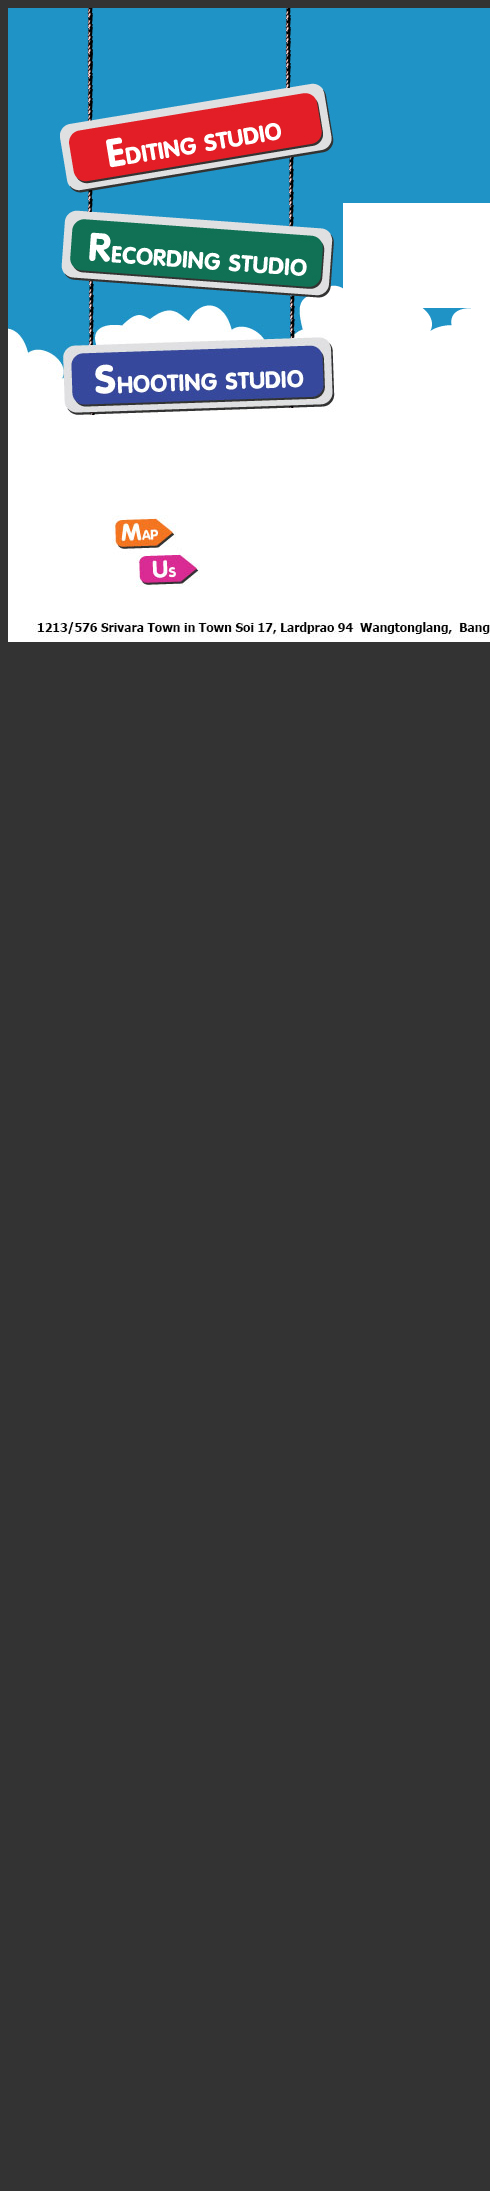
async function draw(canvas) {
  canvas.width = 490
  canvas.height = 2191
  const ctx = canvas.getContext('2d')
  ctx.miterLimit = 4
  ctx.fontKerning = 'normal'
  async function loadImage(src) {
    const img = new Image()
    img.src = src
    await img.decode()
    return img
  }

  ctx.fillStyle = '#333'
  ctx.fillRect(0, 0, 490, 2191)
  ctx.fillStyle = '#fff'
  ctx.fillRect(8, 203, 482, 439)
  ctx.drawImage(await loadImage('image0.png'), 8, 8, 335, 195)
  ctx.fillStyle = '#1f93c6'
  ctx.fillRect(343, 8, 147, 195)
  ctx.drawImage(await loadImage('image1.png'), 8, 203, 335, 105)
  ctx.drawImage(await loadImage('image2.png'), 8, 308, 328, 112)
  ctx.drawImage(await loadImage('image3.png'), 422, 308, 49, 23)
  ctx.drawImage(await loadImage('image4.png'), 112, 515, 88, 72)
  ctx.drawImage(await loadImage('image5.png'), 32, 622, 458, 16)
}

draw(document.querySelector('canvas'))
